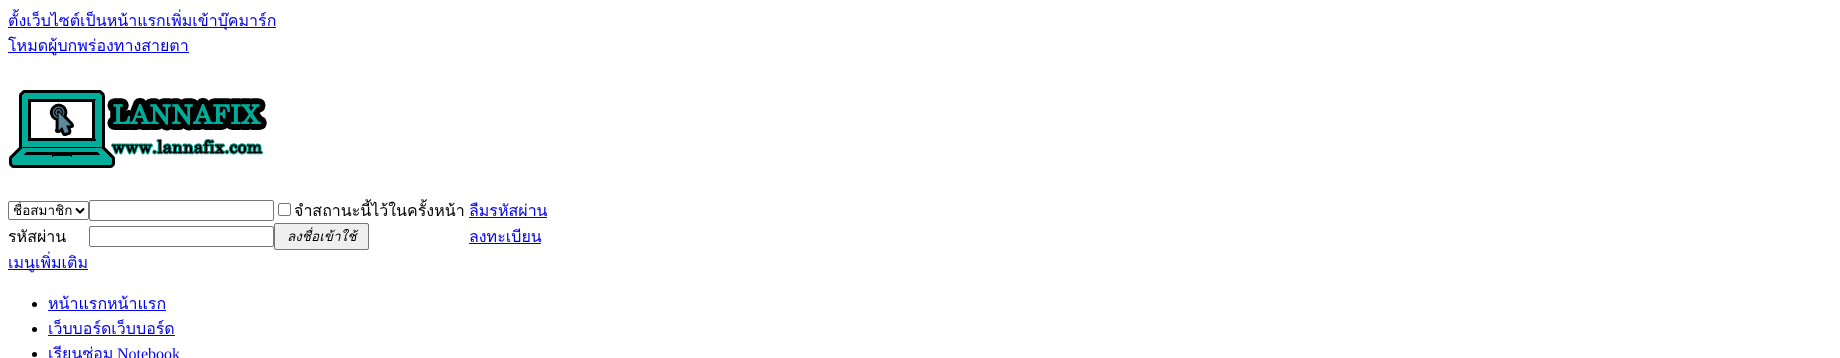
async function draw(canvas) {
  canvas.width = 1840
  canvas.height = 358
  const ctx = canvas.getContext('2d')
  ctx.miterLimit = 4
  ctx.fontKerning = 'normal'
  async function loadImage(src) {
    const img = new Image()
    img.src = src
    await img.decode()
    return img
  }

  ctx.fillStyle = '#fff'
  ctx.fillRect(0, 0, 1840, 358)
  ctx.fillStyle = '#00e'
  ctx.fillRect(8, 27, 268, 1)
  ctx.font = '16px Loma'
  ctx.fillText('ตั้งเว็บไซต์เป็นหน้าแรกเพิ่มเข้าบุ๊คมาร์ก', 8, 26)
  ctx.fillRect(8, 52, 181, 1)
  ctx.fillText('โหมดผู้บกพร่องทางสายตา', 8, 51)
  ctx.drawImage(await loadImage('image0.png'), 9, 90, 258, 78)
  ctx.beginPath()
  ctx.roundRect(8.5, 201.5, 80, 18, 1.5)
  ctx.strokeStyle = '#767676'
  ctx.stroke()
  ctx.beginPath()
  ctx.moveTo(76, 208.5)
  ctx.lineTo(80, 212.5)
  ctx.lineTo(84, 208.5)
  ctx.strokeStyle = '#000'
  ctx.lineWidth = 2
  ctx.stroke()
  ctx.save()
  ctx.beginPath()
  ctx.rect(13, 202, 59, 17)
  ctx.clip()
  ctx.font = '13.5px Loma'
  ctx.fillStyle = '#000'
  ctx.fillText('ชื่อสมาชิก', 13, 215)
  ctx.restore()
  ctx.beginPath()
  ctx.roundRect(89.5, 200.5, 184, 20, 1.5)
  ctx.strokeStyle = '#767676'
  ctx.lineWidth = 1
  ctx.stroke()
  ctx.beginPath()
  ctx.roundRect(278.5, 203.5, 12, 12, 1.5)
  ctx.stroke()
  ctx.fillStyle = '#000'
  ctx.fillText('จำสถานะนี้ไว้ในครั้งหน้า', 294, 216)
  ctx.fillStyle = '#00e'
  ctx.fillText('ลืมรหัสผ่าน', 469, 216)
  ctx.fillRect(469, 217, 78, 1)
  ctx.fillStyle = '#000'
  ctx.fillText('รหัสผ่าน', 8, 242)
  ctx.beginPath()
  ctx.roundRect(89.5, 226.5, 184, 20, 1.5)
  ctx.stroke()
  ctx.fillStyle = '#efefef'
  ctx.beginPath()
  ctx.roundRect(274.5, 223.5, 94, 26, 1.5)
  ctx.fill()
  ctx.stroke()
  ctx.font = 'italic 13.5px Loma'
  ctx.fillStyle = '#000'
  ctx.fillText('ลงชื่อเข้าใช้', 287, 241)
  ctx.font = '16px Loma'
  ctx.fillStyle = '#00e'
  ctx.fillText('ลงทะเบียน', 469, 242)
  ctx.fillRect(469, 243, 72, 1)
  ctx.fillRect(8, 269, 80, 1)
  ctx.fillText('เมนูเพิ่มเติม', 8, 268)
  ctx.fillStyle = '#000'
  ctx.beginPath()
  ctx.arc(34.5, 304.5, 2.5, 0, 2 * Math.PI)
  ctx.fill()
  ctx.fillStyle = '#00e'
  ctx.fillText('หน้าแรกหน้าแรก', 48, 309)
  ctx.fillRect(48, 310, 118, 1)
  ctx.fillStyle = '#000'
  ctx.beginPath()
  ctx.arc(34.5, 329.5, 2.5, 0, 2 * Math.PI)
  ctx.fill()
  ctx.fillStyle = '#00e'
  ctx.fillText('เว็บบอร์ดเว็บบอร์ด', 48, 334)
  ctx.fillRect(48, 335, 127, 1)
  ctx.fillStyle = '#000'
  ctx.beginPath()
  ctx.arc(34.5, 354.5, 2.5, 0, 2 * Math.PI)
  ctx.fill()
  ctx.fillStyle = '#00e'
  ctx.fillText('เรียนซ่อม', 48, 359)
  ctx.font = '16px Liberation Serif'
  ctx.fillText('Notebook', 117, 359)
}

draw(document.querySelector('canvas'))
